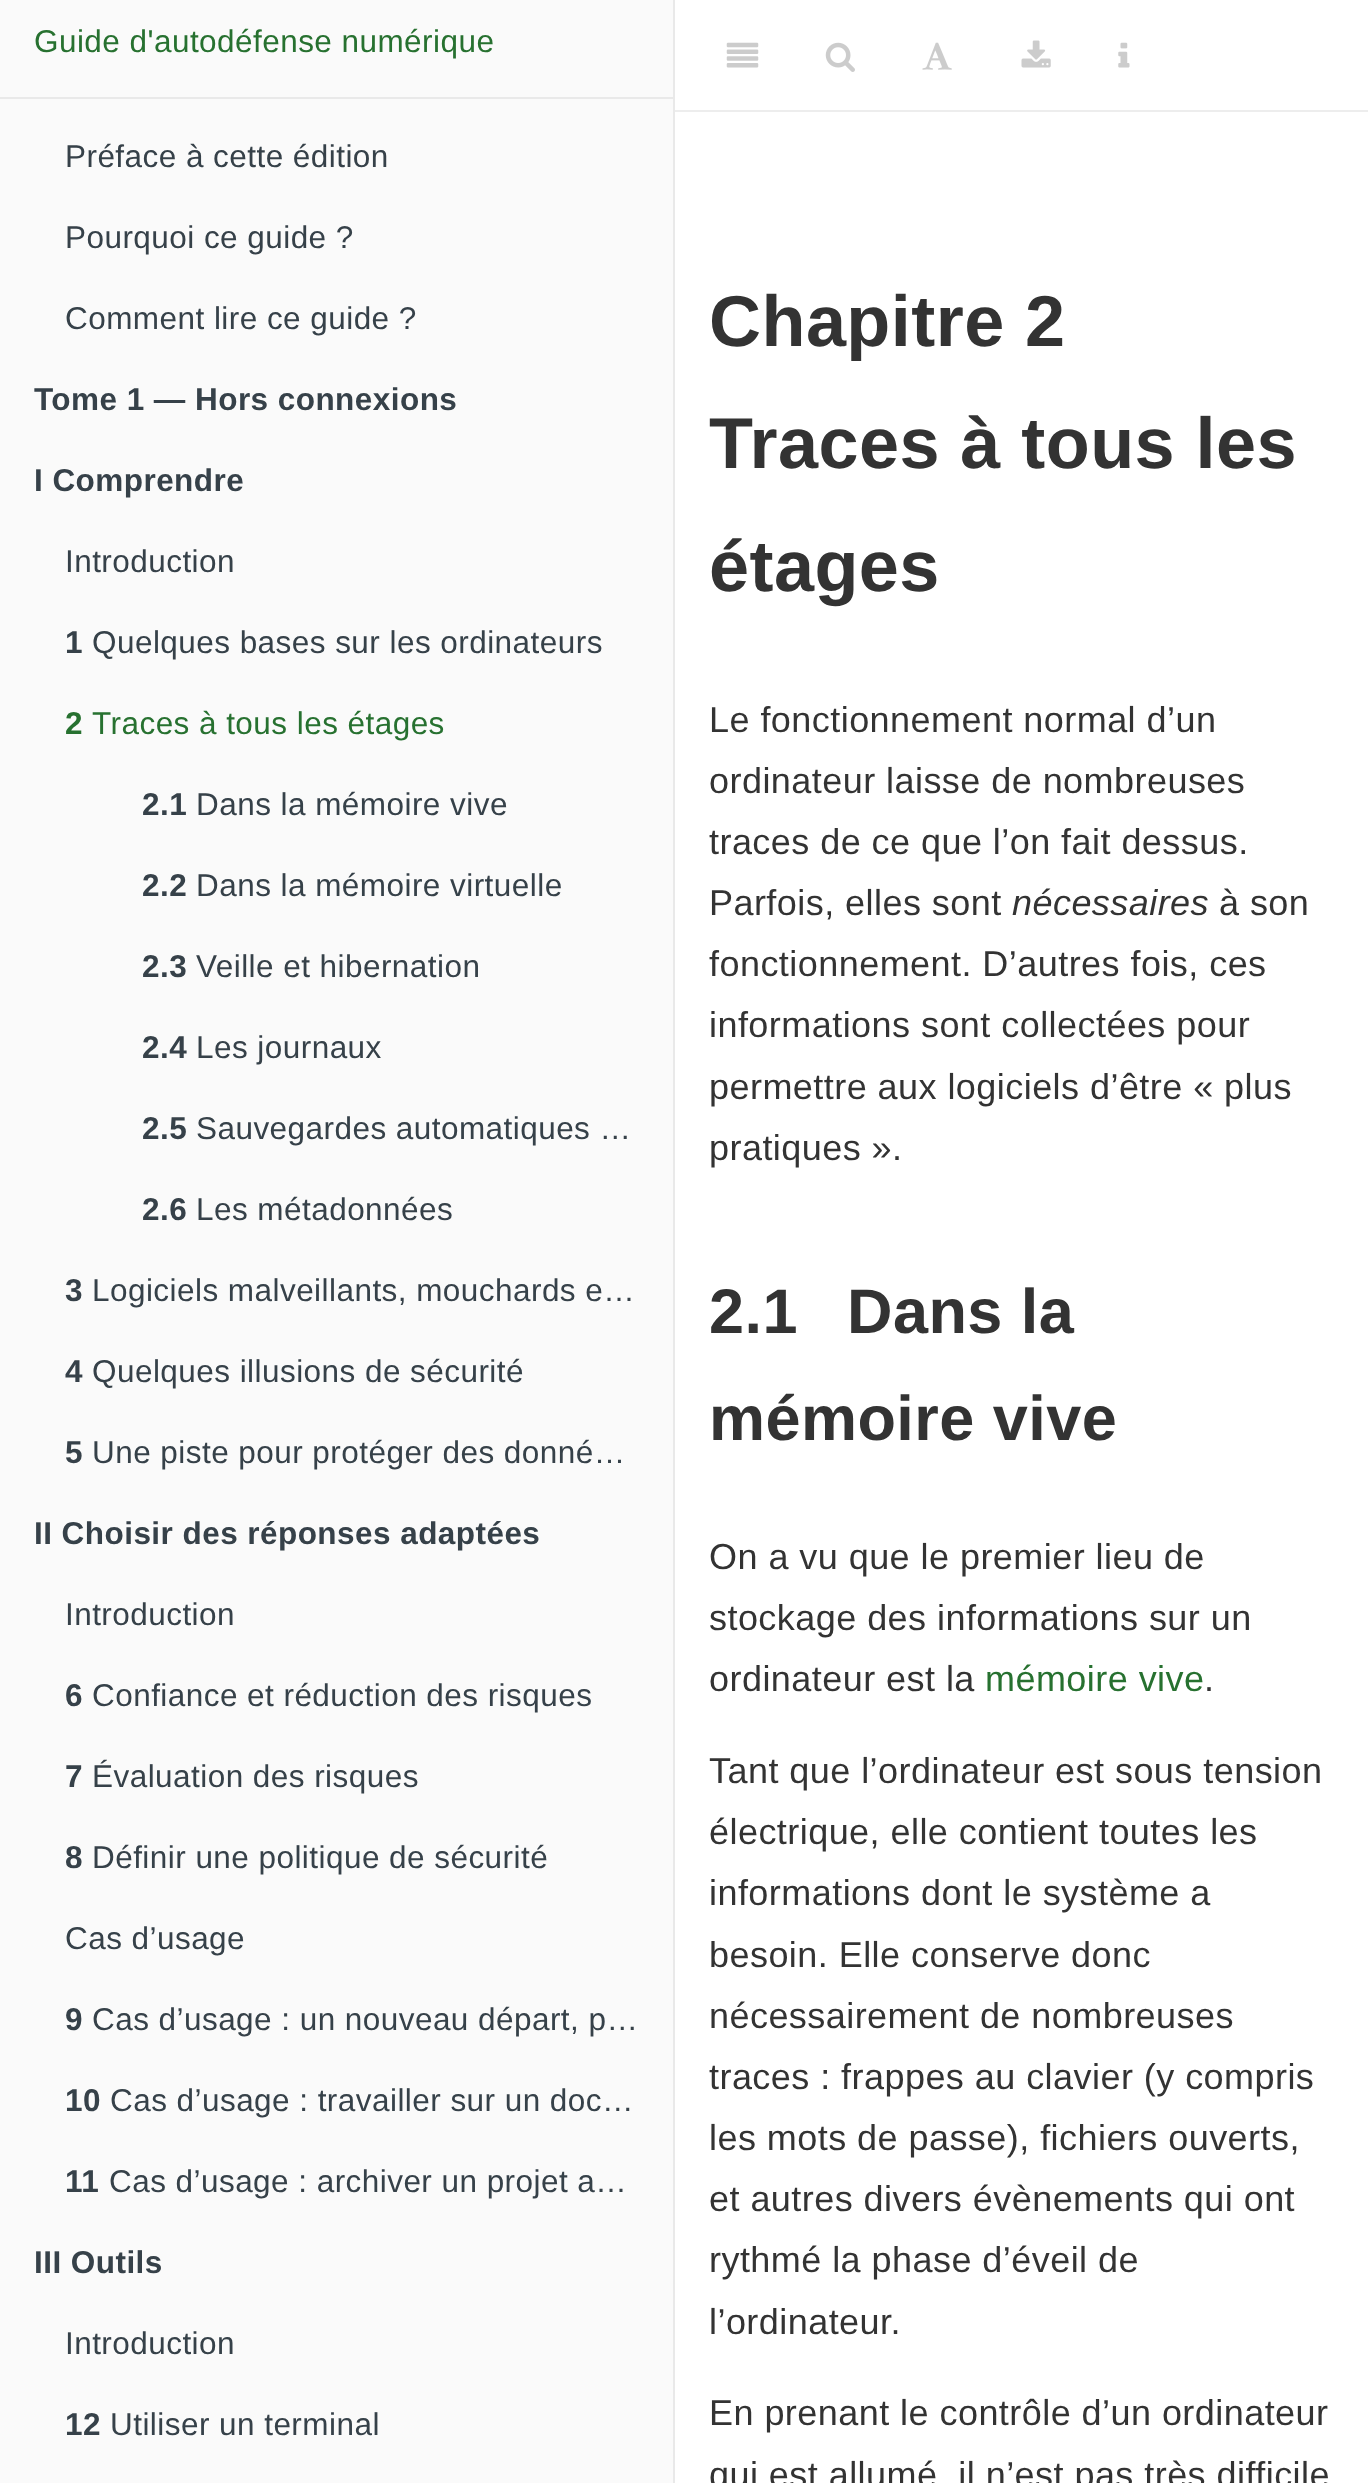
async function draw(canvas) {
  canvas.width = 1368
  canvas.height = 2483
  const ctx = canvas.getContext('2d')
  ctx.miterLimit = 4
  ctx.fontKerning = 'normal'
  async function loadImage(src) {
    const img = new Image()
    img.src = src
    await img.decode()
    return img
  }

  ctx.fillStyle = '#fff'
  ctx.fillRect(0, 0, 1368, 2483)
  ctx.fillStyle = '#fafafa'
  ctx.fillRect(0, 0, 673, 2483)
  ctx.fillStyle = '#e9e9e9'
  ctx.fillRect(673, 0, 2, 2483)
  ctx.letterSpacing = '0.45px'
  ctx.font = '31.5px Liberation Sans'
  ctx.fillStyle = '#277130'
  ctx.fillText('Guide d\'autodéfense numérique', 34, 52)
  ctx.fillStyle = '#e9e9e9'
  ctx.fillRect(0, 97, 673, 2)
  ctx.fillStyle = '#364149'
  ctx.fillText('Préface à cette édition', 65, 167)
  ctx.fillText('Pourquoi ce guide ?', 65, 248)
  ctx.fillText('Comment lire ce guide ?', 65, 329)
  ctx.font = 'bold 31.5px Liberation Sans'
  ctx.fillText('Tome 1 — Hors connexions', 34, 410)
  ctx.fillText('I Comprendre', 34, 491)
  ctx.font = '31.5px Liberation Sans'
  ctx.fillText('Introduction', 65, 572)
  ctx.font = 'bold 31.5px Liberation Sans'
  ctx.fillText('1', 65, 653)
  ctx.font = '31.5px Liberation Sans'
  ctx.fillText('Quelques bases sur les ordinateurs', 92, 653)
  ctx.font = 'bold 31.5px Liberation Sans'
  ctx.fillStyle = '#277130'
  ctx.fillText('2', 65, 734)
  ctx.font = '31.5px Liberation Sans'
  ctx.fillText('Traces à tous les étages', 92, 734)
  ctx.font = 'bold 31.5px Liberation Sans'
  ctx.fillStyle = '#364149'
  ctx.fillText('2.1', 142, 815)
  ctx.font = '31.5px Liberation Sans'
  ctx.fillText('Dans la mémoire vive', 196, 815)
  ctx.font = 'bold 31.5px Liberation Sans'
  ctx.fillText('2.2', 142, 896)
  ctx.font = '31.5px Liberation Sans'
  ctx.fillText('Dans la mémoire virtuelle', 196, 896)
  ctx.font = 'bold 31.5px Liberation Sans'
  ctx.fillText('2.3', 142, 977)
  ctx.font = '31.5px Liberation Sans'
  ctx.fillText('Veille et hibernation', 196, 977)
  ctx.font = 'bold 31.5px Liberation Sans'
  ctx.fillText('2.4', 142, 1058)
  ctx.font = '31.5px Liberation Sans'
  ctx.fillText('Les journaux', 196, 1058)
  ctx.font = 'bold 31.5px Liberation Sans'
  ctx.fillText('2.5', 142, 1139)
  ctx.font = '31.5px Liberation Sans'
  ctx.fillText('Sauvegardes automatiques …', 196, 1139)
  ctx.font = 'bold 31.5px Liberation Sans'
  ctx.fillText('2.6', 142, 1220)
  ctx.font = '31.5px Liberation Sans'
  ctx.fillText('Les métadonnées', 196, 1220)
  ctx.font = 'bold 31.5px Liberation Sans'
  ctx.fillText('3', 65, 1301)
  ctx.font = '31.5px Liberation Sans'
  ctx.fillText('Logiciels malveillants, mouchards e…', 92, 1301)
  ctx.font = 'bold 31.5px Liberation Sans'
  ctx.fillText('4', 65, 1382)
  ctx.font = '31.5px Liberation Sans'
  ctx.fillText('Quelques illusions de sécurité', 92, 1382)
  ctx.font = 'bold 31.5px Liberation Sans'
  ctx.fillText('5', 65, 1463)
  ctx.font = '31.5px Liberation Sans'
  ctx.fillText('Une piste pour protéger des donné…', 92, 1463)
  ctx.font = 'bold 31.5px Liberation Sans'
  ctx.fillText('II Choisir des réponses adaptées', 34, 1544)
  ctx.font = '31.5px Liberation Sans'
  ctx.fillText('Introduction', 65, 1625)
  ctx.font = 'bold 31.5px Liberation Sans'
  ctx.fillText('6', 65, 1706)
  ctx.font = '31.5px Liberation Sans'
  ctx.fillText('Confiance et réduction des risques', 92, 1706)
  ctx.font = 'bold 31.5px Liberation Sans'
  ctx.fillText('7', 65, 1787)
  ctx.font = '31.5px Liberation Sans'
  ctx.fillText('Évaluation des risques', 92, 1787)
  ctx.font = 'bold 31.5px Liberation Sans'
  ctx.fillText('8', 65, 1868)
  ctx.font = '31.5px Liberation Sans'
  ctx.fillText('Définir une politique de sécurité', 92, 1868)
  ctx.fillText('Cas d’usage', 65, 1949)
  ctx.font = 'bold 31.5px Liberation Sans'
  ctx.fillText('9', 65, 2030)
  ctx.font = '31.5px Liberation Sans'
  ctx.fillText('Cas d’usage : un nouveau départ, p…', 92, 2030)
  ctx.font = 'bold 31.5px Liberation Sans'
  ctx.fillText('10', 65, 2111)
  ctx.font = '31.5px Liberation Sans'
  ctx.fillText('Cas d’usage : travailler sur un doc…', 110, 2111)
  ctx.font = 'bold 31.5px Liberation Sans'
  ctx.fillText('11', 65, 2192)
  ctx.font = '31.5px Liberation Sans'
  ctx.fillText('Cas d’usage : archiver un projet a…', 109, 2192)
  ctx.font = 'bold 31.5px Liberation Sans'
  ctx.fillText('III Outils', 34, 2273)
  ctx.font = '31.5px Liberation Sans'
  ctx.fillText('Introduction', 65, 2354)
  ctx.font = 'bold 31.5px Liberation Sans'
  ctx.fillText('12', 65, 2435)
  ctx.font = '31.5px Liberation Sans'
  ctx.fillText('Utiliser un terminal', 110, 2435)
  ctx.fillStyle = '#ededed'
  ctx.fillRect(675, 110, 693, 2)
  ctx.drawImage(await loadImage('image0.png'), 726, 42, 33, 26)
  ctx.drawImage(await loadImage('image1.png'), 825, 42, 30, 30)
  ctx.drawImage(await loadImage('image2.png'), 922, 42, 30, 28)
  ctx.drawImage(await loadImage('image3.png'), 1021, 40, 30, 28)
  ctx.drawImage(await loadImage('image4.png'), 1118, 42, 12, 26)
  ctx.font = 'bold 72px Liberation Sans'
  ctx.fillStyle = '#333'
  ctx.fillText('Chapitre 2', 709, 346)
  ctx.fillText('Traces à tous les', 709, 468)
  ctx.fillText('étages', 709, 591)
  ctx.font = '36px Liberation Sans'
  ctx.fillText('Le fonctionnement normal d’un', 709, 732)
  ctx.fillText('ordinateur laisse de nombreuses', 709, 793)
  ctx.fillText('traces de ce que l’on fait dessus.', 709, 854)
  ctx.fillText('Parfois, elles sont', 709, 915)
  ctx.font = 'italic 36px Liberation Sans'
  ctx.fillText('nécessaires', 1012, 915)
  ctx.font = '36px Liberation Sans'
  ctx.fillText('à son', 1219, 915)
  ctx.fillText('fonctionnement. D’autres fois, ces', 709, 976)
  ctx.fillText('informations sont collectées pour', 709, 1037)
  ctx.fillText('permettre aux logiciels d’être « plus', 709, 1099)
  ctx.fillText('pratiques ».', 709, 1160)
  ctx.font = 'bold 63px Liberation Sans'
  ctx.fillText('2.1', 709, 1333)
  ctx.fillText('Dans la', 847, 1333)
  ctx.fillText('mémoire vive', 709, 1440)
  ctx.font = '36px Liberation Sans'
  ctx.fillText('On a vu que le premier lieu de', 709, 1569)
  ctx.fillText('stockage des informations sur un', 709, 1630)
  ctx.fillText('ordinateur est la', 709, 1691)
  ctx.fillStyle = '#277130'
  ctx.fillText('mémoire vive', 985, 1691)
  ctx.fillStyle = '#333'
  ctx.fillText('.', 1204, 1691)
  ctx.fillText('Tant que l’ordinateur est sous tension', 709, 1783)
  ctx.fillText('électrique, elle contient toutes les', 709, 1844)
  ctx.fillText('informations dont le système a', 709, 1905)
  ctx.fillText('besoin. Elle conserve donc', 709, 1967)
  ctx.fillText('nécessairement de nombreuses', 709, 2028)
  ctx.fillText('traces : frappes au clavier (y compris', 709, 2089)
  ctx.fillText('les mots de passe), fichiers ouverts,', 709, 2150)
  ctx.fillText('et autres divers évènements qui ont', 709, 2211)
  ctx.fillText('rythmé la phase d’éveil de', 709, 2272)
  ctx.fillText('l’ordinateur.', 709, 2334)
  ctx.fillText('En prenant le contrôle d’un ordinateur', 709, 2425)
  ctx.fillText('qui est allumé, il n’est pas très difficile', 709, 2487)
}

draw(document.querySelector('canvas'))
